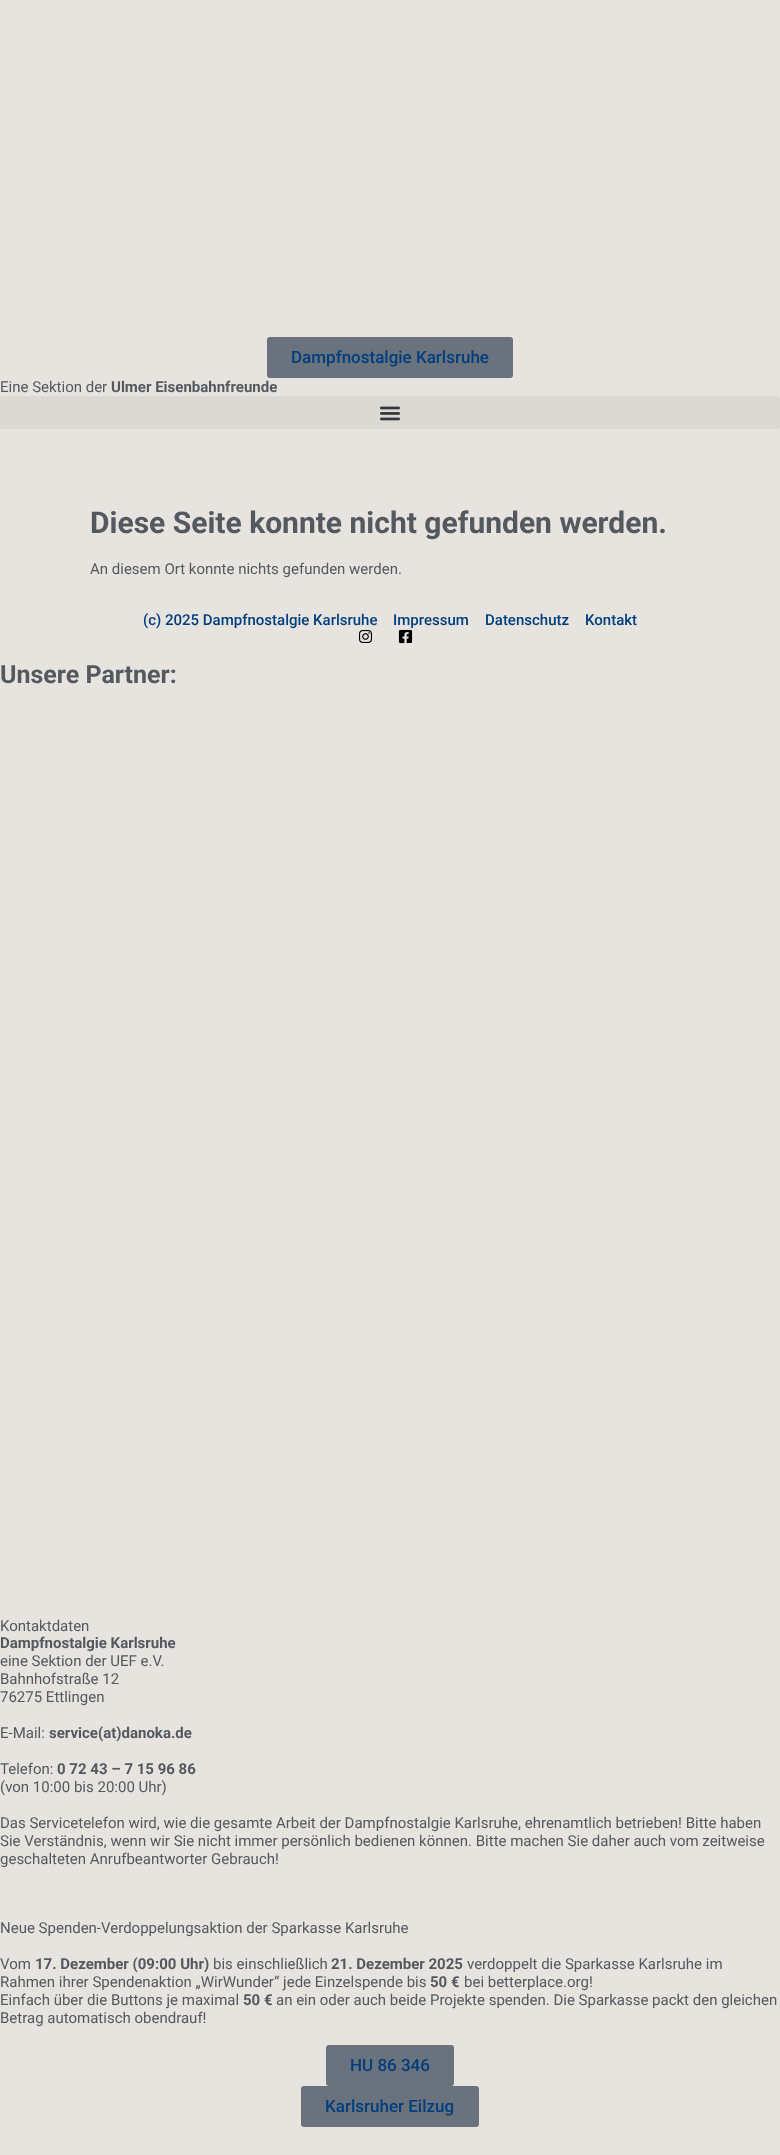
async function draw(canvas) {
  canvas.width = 780
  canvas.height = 2155
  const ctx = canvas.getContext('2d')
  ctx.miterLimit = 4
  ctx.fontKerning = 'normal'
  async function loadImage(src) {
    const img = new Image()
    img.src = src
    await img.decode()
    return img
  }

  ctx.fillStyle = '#e7e4df'
  ctx.fillRect(0, 0, 780, 2155)
  ctx.fillStyle = '#69727d'
  ctx.beginPath()
  ctx.roundRect(267, 337, 246, 41, 3)
  ctx.fill()
  ctx.font = '500 17px Roboto'
  ctx.fillStyle = '#013e7d'
  ctx.fillText('Dampfnostalgie Karlsruhe', 291, 363)
  ctx.font = '15px Roboto'
  ctx.fillStyle = '#54595f'
  ctx.fillText('Eine Sektion der', 0, 392)
  ctx.font = 'bold 15px Roboto'
  ctx.fillText('Ulmer Eisenbahnfreunde', 111, 392)
  ctx.fillStyle = '#dbd9d4'
  ctx.beginPath()
  ctx.roundRect(0, 396, 780, 33, 3)
  ctx.fill()
  ctx.drawImage(await loadImage('image0.png'), 379, 406, 21, 15)
  ctx.font = 'bold 30px Roboto'
  ctx.fillStyle = '#54595f'
  ctx.fillText('Diese Seite konnte nicht gefunden werden.', 90, 533)
  ctx.font = '15px Roboto'
  ctx.fillText('An diesem Ort konnte nichts gefunden werden.', 90, 574)
  ctx.font = '500 15px Roboto'
  ctx.fillStyle = '#013e7d'
  ctx.fillText('(c) 2025 Dampfnostalgie Karlsruhe', 143, 625)
  ctx.fillText('Impressum', 393, 625)
  ctx.fillText('Datenschutz', 485, 625)
  ctx.fillText('Kontakt', 585, 625)
  ctx.drawImage(await loadImage('image1.png'), 359, 630, 14, 13)
  ctx.drawImage(await loadImage('image2.png'), 398, 629, 15, 15)
  ctx.font = 'bold 25px Roboto'
  ctx.fillStyle = '#54595f'
  ctx.fillText('Unsere Partner:', 0, 683)
  ctx.font = '15px Roboto'
  ctx.fillText('Kontaktdaten', 0, 1631)
  ctx.font = 'bold 15px Roboto'
  ctx.fillText('Dampfnostalgie Karlsruhe', 0, 1648)
  ctx.font = '15px Roboto'
  ctx.fillText('eine Sektion der UEF e.V.', 0, 1666)
  ctx.fillText('Bahnhofstraße 12', 0, 1684)
  ctx.fillText('76275 Ettlingen', 0, 1702)
  ctx.fillText('E-Mail:', 0, 1738)
  ctx.font = 'bold 15px Roboto'
  ctx.fillText('service(at)danoka.de', 49, 1738)
  ctx.font = '15px Roboto'
  ctx.fillText('Telefon:', 0, 1774)
  ctx.font = 'bold 15px Roboto'
  ctx.fillText('0 72 43 – 7 15 96 86', 57, 1774)
  ctx.font = '15px Roboto'
  ctx.fillText('(von 10:00 bis 20:00 Uhr)', 0, 1792)
  ctx.fillText('Das Servicetelefon wird, wie die gesamte Arbeit der Dampfnostalgie Karlsruhe, ehrenamtlich betrieben! Bitte haben', 0, 1828)
  ctx.fillText('Sie Verständnis, wenn wir Sie nicht immer persönlich bedienen können. Bitte machen Sie daher auch vom zeitweise', 0, 1846)
  ctx.fillText('geschalteten Anrufbeantworter Gebrauch!', 0, 1864)
  ctx.fillText('Neue Spenden-Verdoppelungsaktion der Sparkasse Karlsruhe', 0, 1933)
  ctx.fillText('Vom', 0, 1969)
  ctx.font = 'bold 15px Roboto'
  ctx.fillText('17. Dezember (09:00 Uhr)', 35, 1969)
  ctx.font = '15px Roboto'
  ctx.fillText('bis einschließlich', 213, 1969)
  ctx.font = 'bold 15px Roboto'
  ctx.fillText('21. Dezember 2025', 331, 1969)
  ctx.font = '15px Roboto'
  ctx.fillText('verdoppelt die Sparkasse Karlsruhe im', 467, 1969)
  ctx.fillText('Rahmen ihrer Spendenaktion „WirWunder“ jede Einzelspende bis', 0, 1987)
  ctx.font = 'bold 15px Roboto'
  ctx.fillText('50 €', 430, 1987)
  ctx.font = '15px Roboto'
  ctx.fillText('bei betterplace.org!', 464, 1987)
  ctx.fillText('Einfach über die Buttons je maximal', 0, 2005)
  ctx.font = 'bold 15px Roboto'
  ctx.fillText('50 €', 243, 2005)
  ctx.font = '15px Roboto'
  ctx.fillText('an ein oder auch beide Projekte spenden. Die Sparkasse packt den gleichen', 276, 2005)
  ctx.fillText('Betrag automatisch obendrauf!', 0, 2023)
  ctx.fillStyle = '#69727d'
  ctx.beginPath()
  ctx.roundRect(326, 2045, 128, 41, 3)
  ctx.fill()
  ctx.font = '500 17px Roboto'
  ctx.fillStyle = '#013e7d'
  ctx.fillText('HU 86 346', 350, 2071)
  ctx.fillStyle = '#69727d'
  ctx.beginPath()
  ctx.roundRect(301, 2086, 178, 41, 3)
  ctx.fill()
  ctx.fillStyle = '#013e7d'
  ctx.fillText('Karlsruher Eilzug', 325, 2112)
}

draw(document.querySelector('canvas'))
